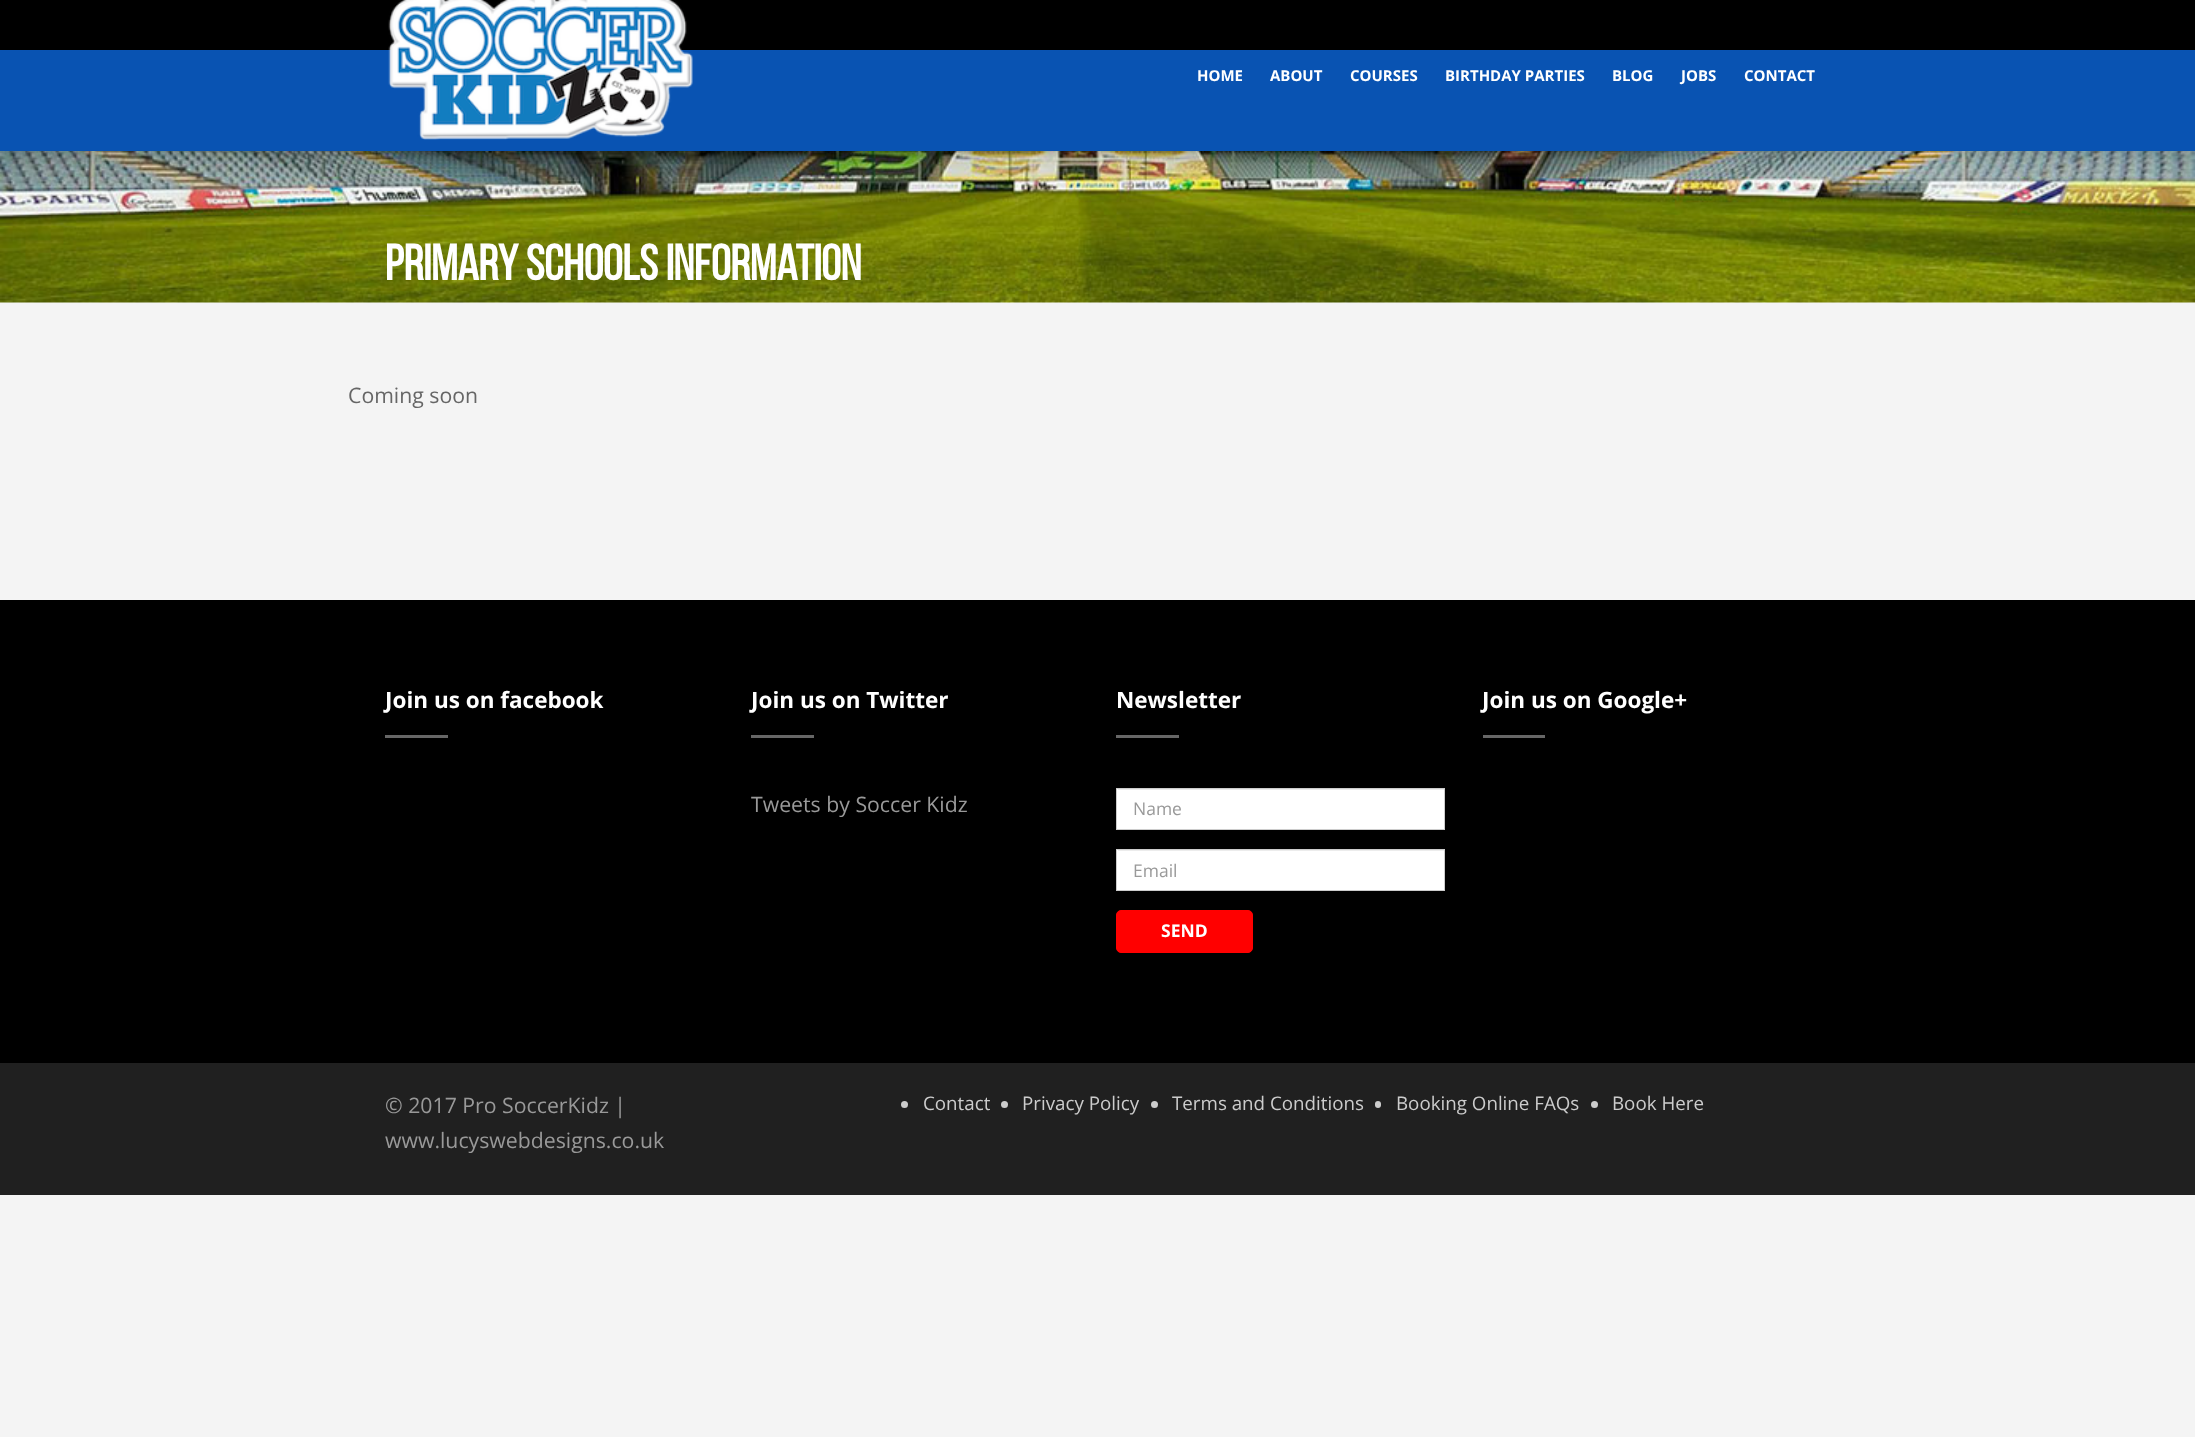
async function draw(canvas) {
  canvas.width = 2195
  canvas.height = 1437
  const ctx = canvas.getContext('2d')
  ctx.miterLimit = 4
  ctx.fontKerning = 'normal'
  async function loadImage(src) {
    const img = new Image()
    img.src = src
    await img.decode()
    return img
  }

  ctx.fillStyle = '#f4f4f4'
  ctx.fillRect(0, 0, 2195, 1437)
  ctx.drawImage(await loadImage('image1.png'), 0, 151, 2195, 152)
  ctx.fillStyle = '#0000000d'
  ctx.filter = 'blur(3px)'
  ctx.beginPath()
  ctx.rect(0, 6, 2195, 152)
  ctx.fill()
  ctx.filter = 'none'
  ctx.fillStyle = '#0953b2'
  ctx.fillRect(0, 50, 2195, 101)
  ctx.fillStyle = '#000'
  ctx.fillRect(0, 0, 2195, 50)
  ctx.drawImage(await loadImage('image0.png'), 388, 0, 305, 140)
  ctx.font = 'bold 15px Open Sans'
  ctx.fillStyle = '#fff'
  ctx.fillText('HOME', 1197, 81)
  ctx.fillText('ABOUT', 1270, 81)
  ctx.fillText('COURSES', 1350, 81)
  ctx.fillText('BIRTHDAY PARTIES', 1445, 81)
  ctx.fillText('BLOG', 1612, 81)
  ctx.fillText('JOBS', 1681, 81)
  ctx.fillText('CONTACT', 1744, 81)
  ctx.font = 'bold 50px Bebas Neue'
  ctx.fillText('Primary Schools Information', 385, 280)
  ctx.font = '21.25px Open Sans'
  ctx.fillStyle = '#666'
  ctx.fillText('Coming soon', 348, 403)
  ctx.fillStyle = '#000'
  ctx.fillRect(0, 600, 2195, 463)
  ctx.font = 'bold 22.5px Open Sans'
  ctx.fillStyle = '#fff'
  ctx.fillText('Join us on facebook', 385, 708)
  ctx.fillStyle = '#666'
  ctx.fillRect(385, 735, 63, 3)
  ctx.fillStyle = '#fff'
  ctx.fillText('Join us on Twitter', 751, 708)
  ctx.fillStyle = '#666'
  ctx.fillRect(751, 735, 63, 3)
  ctx.font = '21.25px Open Sans'
  ctx.fillStyle = '#999'
  ctx.fillText('Tweets by Soccer Kidz', 751, 812)
  ctx.font = 'bold 22.5px Open Sans'
  ctx.fillStyle = '#fff'
  ctx.fillText('Newsletter', 1116, 708)
  ctx.fillStyle = '#666'
  ctx.fillRect(1116, 735, 63, 3)
  ctx.fillStyle = '#fff'
  ctx.fillRect(1117, 789, 327, 40)
  ctx.fillStyle = '#ececec'
  ctx.fillRect(1118, 789, 326, 1)
  ctx.strokeStyle = '#ccc'
  ctx.strokeRect(1116.5, 788.5, 328, 41)
  ctx.font = '17.5px Open Sans'
  ctx.fillStyle = '#999'
  ctx.fillText('Name', 1133, 815)
  ctx.fillStyle = '#fff'
  ctx.fillRect(1117, 850, 327, 40)
  ctx.fillStyle = '#ececec'
  ctx.fillRect(1118, 850, 326, 1)
  ctx.strokeRect(1116.5, 849.5, 328, 41)
  ctx.fillStyle = '#999'
  ctx.fillText('Email', 1133, 877)
  ctx.fillStyle = '#f00'
  ctx.beginPath()
  ctx.roundRect(1116.5, 910.5, 136, 42, 4.5)
  ctx.fill()
  ctx.strokeStyle = '#f00'
  ctx.stroke()
  ctx.font = 'bold 17.5px Open Sans'
  ctx.fillStyle = '#fff'
  ctx.fillText('SEND', 1161, 937)
  ctx.font = 'bold 22.5px Open Sans'
  ctx.fillText('Join us on Google+', 1482, 708)
  ctx.fillStyle = '#666'
  ctx.fillRect(1483, 735, 62, 3)
  ctx.fillStyle = '#202020'
  ctx.fillRect(0, 1063, 2195, 132)
  ctx.font = '21.25px Open Sans'
  ctx.fillStyle = '#999'
  ctx.fillText('© 2017 Pro SoccerKidz |', 385, 1113)
  ctx.fillText('www.lucyswebdesigns.co.uk', 385, 1148)
  ctx.fillStyle = '#ccc'
  ctx.beginPath()
  ctx.arc(904.5, 1104.5, 3.5, 0, 2 * Math.PI)
  ctx.fill()
  ctx.font = '18.75px Open Sans'
  ctx.fillText('Contact', 923, 1110)
  ctx.beginPath()
  ctx.arc(1004.5, 1104.5, 3.5, 0, 2 * Math.PI)
  ctx.fill()
  ctx.fillText('Privacy Policy', 1022, 1110)
  ctx.beginPath()
  ctx.arc(1154.5, 1104.5, 3.5, 0, 2 * Math.PI)
  ctx.fill()
  ctx.fillText('Terms and Conditions', 1172, 1110)
  ctx.beginPath()
  ctx.roundRect(1375, 1101, 6, 7, 3)
  ctx.fill()
  ctx.fillText('Booking Online FAQs', 1396, 1110)
  ctx.beginPath()
  ctx.arc(1594.5, 1104.5, 3.5, 0, 2 * Math.PI)
  ctx.fill()
  ctx.fillText('Book Here', 1612, 1110)
}

draw(document.querySelector('canvas'))
